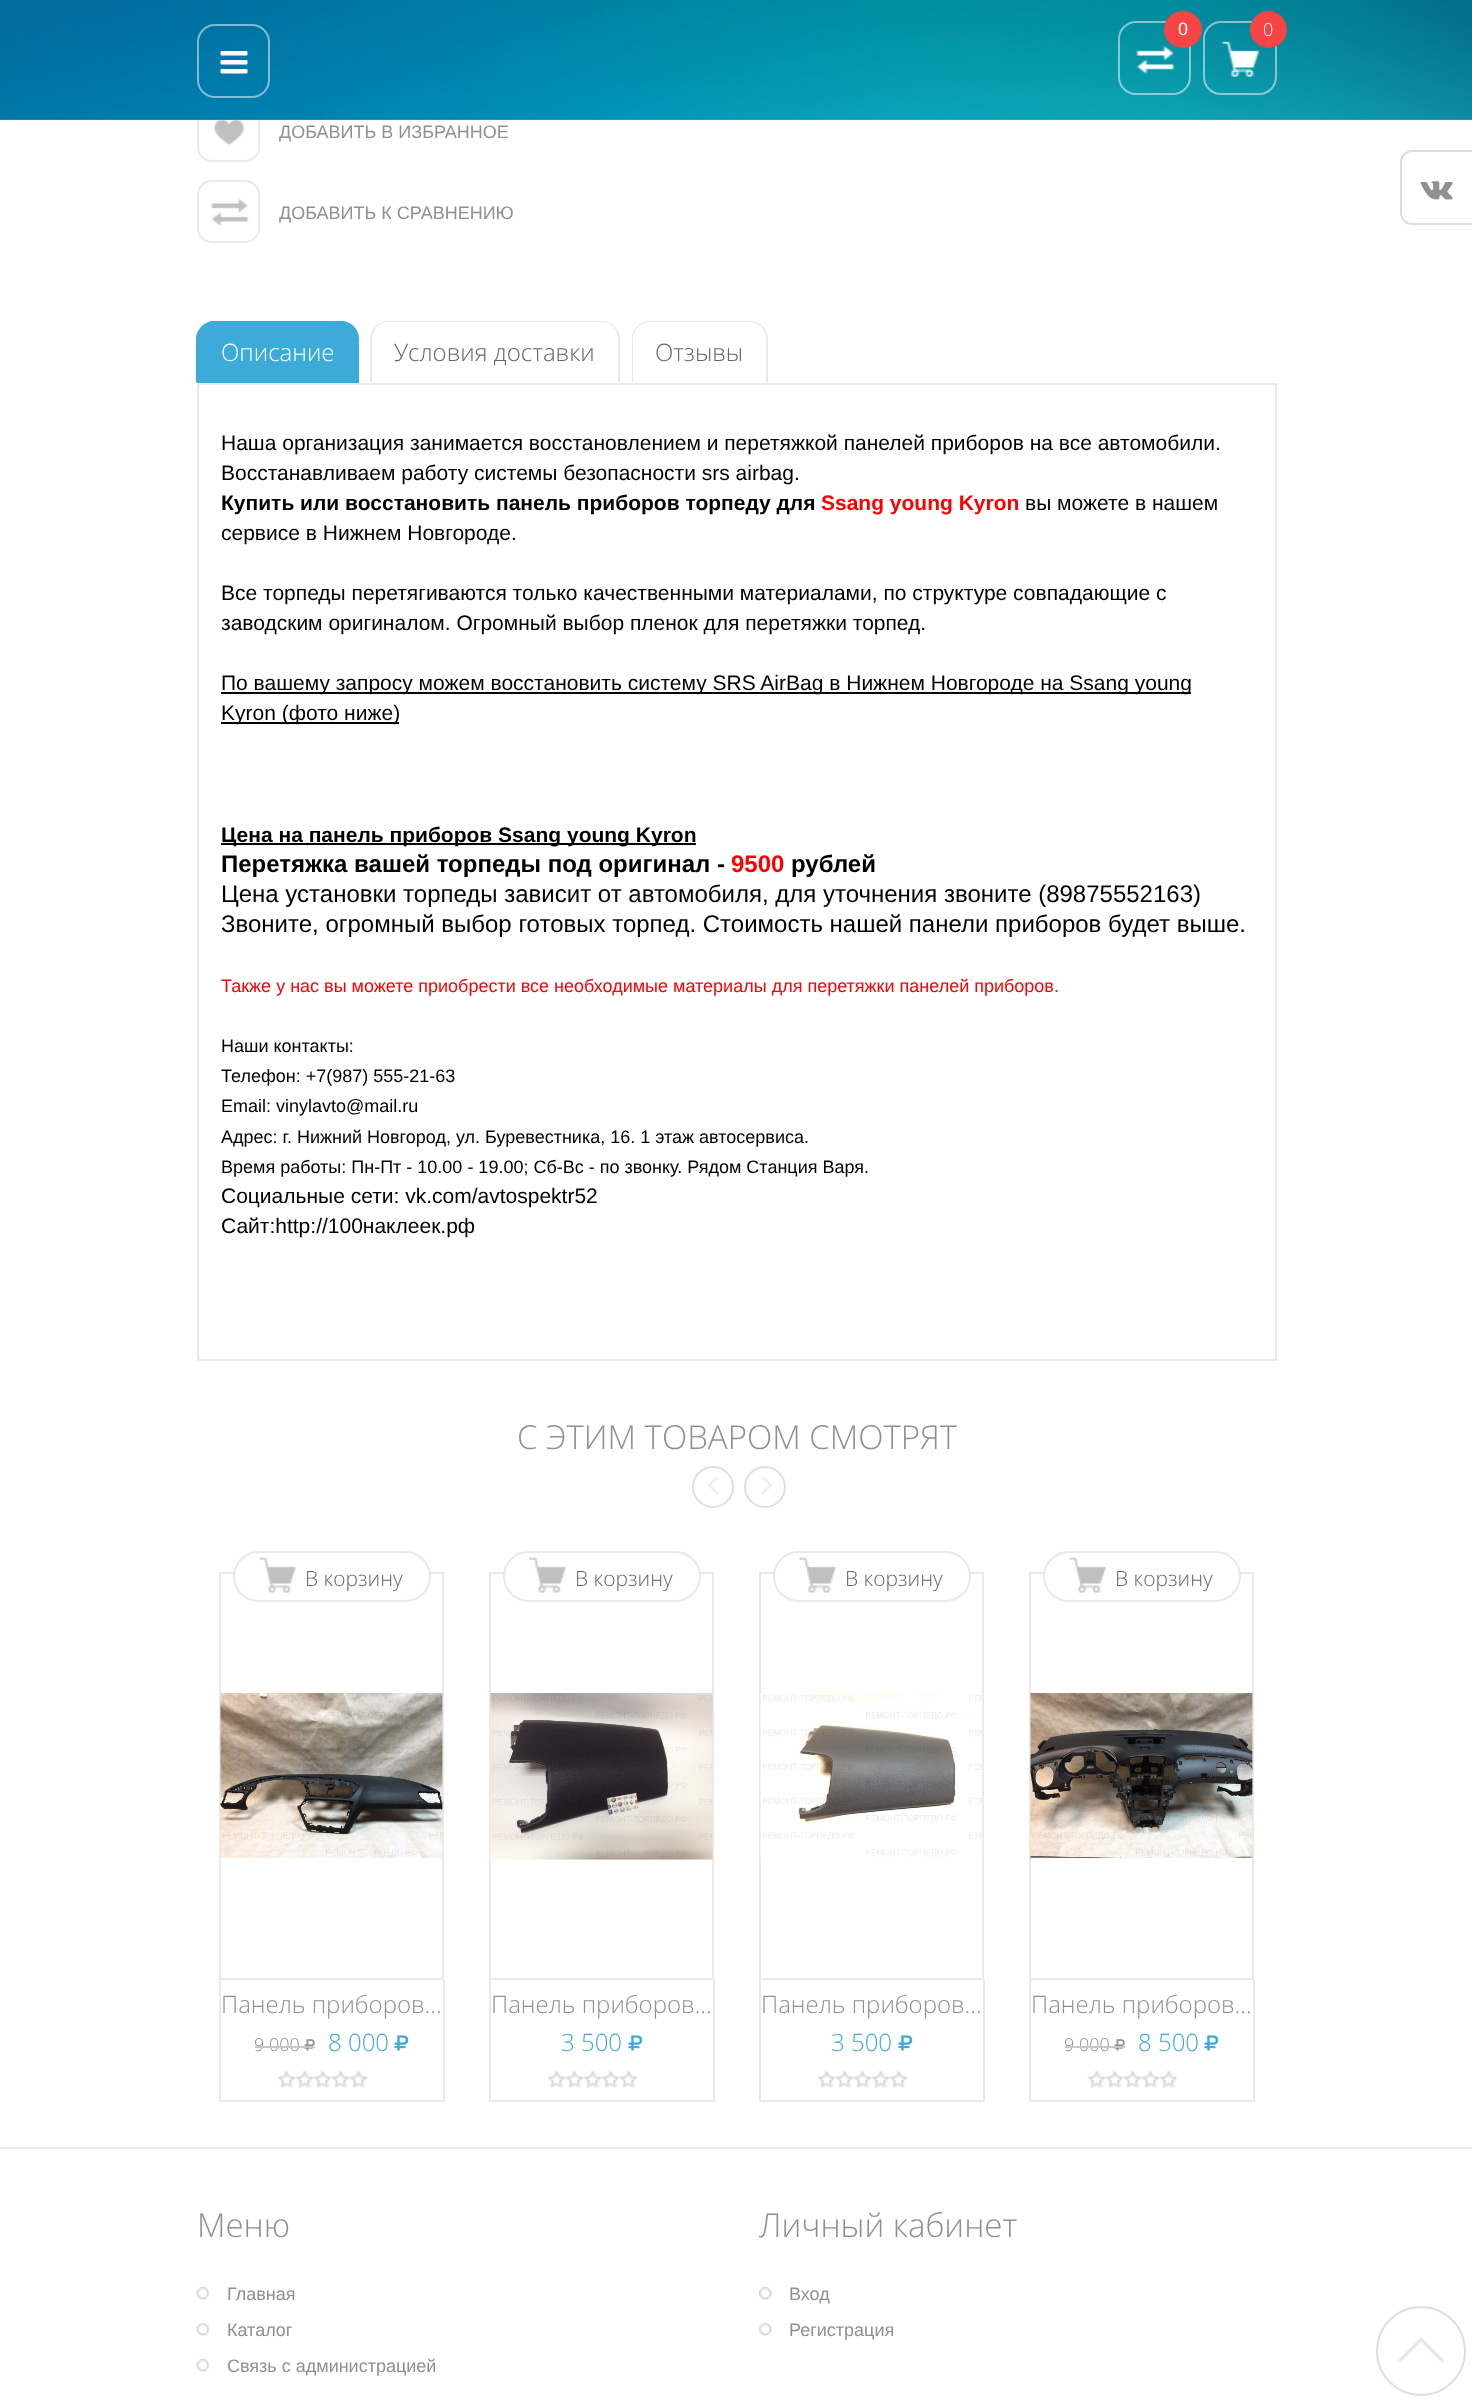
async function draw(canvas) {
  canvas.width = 1472
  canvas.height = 2402
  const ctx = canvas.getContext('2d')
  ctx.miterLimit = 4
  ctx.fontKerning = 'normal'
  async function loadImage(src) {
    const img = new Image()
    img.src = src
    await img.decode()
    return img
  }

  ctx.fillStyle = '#fff'
  ctx.fillRect(0, 0, 1472, 2402)
  ctx.drawImage(await loadImage('image4.png'), 214, 120, 31, 26)
  ctx.beginPath()
  ctx.roundRect(198, 100, 61, 61, 14)
  ctx.strokeStyle = '#e9e9e9'
  ctx.lineWidth = 2
  ctx.stroke()
  ctx.drawImage(await loadImage('image0.png'), 0, 0, 1472, 120)
  ctx.beginPath()
  ctx.roundRect(198, 25, 71, 72, 17)
  ctx.strokeStyle = '#ffffff80'
  ctx.stroke()
  ctx.drawImage(await loadImage('image1.png'), 220, 51, 28, 23)
  ctx.drawImage(await loadImage('image2.png'), 1136, 46, 39, 28)
  ctx.beginPath()
  ctx.roundRect(1119, 22, 71, 72, 17)
  ctx.stroke()
  ctx.fillStyle = '#f74444'
  ctx.beginPath()
  ctx.roundRect(1164, 11, 38, 37, 18.5)
  ctx.fill()
  ctx.font = '18px Liberation Sans'
  ctx.fillStyle = '#fff'
  ctx.fillText('0', 1178, 35)
  ctx.drawImage(await loadImage('image3.png'), 1221, 41, 39, 36)
  ctx.beginPath()
  ctx.roundRect(1204, 22, 72, 72, 17)
  ctx.stroke()
  ctx.fillStyle = '#f74444'
  ctx.beginPath()
  ctx.arc(1268.5, 29.5, 18.5, 0, 2 * Math.PI)
  ctx.fill()
  ctx.font = '300 18px Open Sans'
  ctx.fillStyle = '#fff'
  ctx.fillText('0', 1263, 36)
  ctx.fillStyle = '#ffffff1a'
  ctx.fillRect(0, 119, 1472, 2)
  ctx.font = '18px Liberation Sans'
  ctx.fillStyle = '#909090'
  ctx.fillText('ДОБАВИТЬ В ИЗБРАННОЕ', 279, 138)
  ctx.drawImage(await loadImage('image5.png'), 211, 199, 38, 28)
  ctx.beginPath()
  ctx.roundRect(198, 181, 61, 61, 14)
  ctx.strokeStyle = '#e9e9e9'
  ctx.stroke()
  ctx.fillText('ДОБАВИТЬ К СРАВНЕНИЮ', 279, 219)
  ctx.fillStyle = '#3cabda'
  ctx.beginPath()
  ctx.roundRect(197, 321, 162, 62, [18, 18, 0, 0])
  ctx.fill()
  ctx.beginPath()
  ctx.moveTo(214, 321)
  ctx.lineTo(340, 321)
  ctx.bezierCurveTo(350, 321, 358, 329, 358, 339)
  ctx.lineTo(358, 382)
  ctx.lineTo(196, 382)
  ctx.lineTo(196, 339)
  ctx.bezierCurveTo(196, 329, 205, 321, 214, 321)
  ctx.closePath()
  ctx.moveTo(214, 322)
  ctx.lineTo(340, 322)
  ctx.bezierCurveTo(350, 322, 357, 330, 357, 339)
  ctx.lineTo(357, 382)
  ctx.lineTo(198, 382)
  ctx.lineTo(198, 339)
  ctx.bezierCurveTo(198, 330, 205, 322, 214, 322)
  ctx.closePath()
  ctx.fill('evenodd')
  ctx.font = '300 24px Open Sans'
  ctx.fillStyle = '#fff'
  ctx.fillText('Описание', 221, 361)
  ctx.fillStyle = '#e9e9e9'
  ctx.beginPath()
  ctx.moveTo(388, 321)
  ctx.lineTo(602, 321)
  ctx.bezierCurveTo(611, 321, 620, 329, 620, 339)
  ctx.lineTo(620, 382)
  ctx.lineTo(370, 382)
  ctx.lineTo(370, 339)
  ctx.bezierCurveTo(370, 329, 379, 321, 388, 321)
  ctx.closePath()
  ctx.moveTo(388, 322)
  ctx.lineTo(602, 322)
  ctx.bezierCurveTo(611, 322, 618, 330, 618, 339)
  ctx.lineTo(618, 382)
  ctx.lineTo(372, 382)
  ctx.lineTo(372, 339)
  ctx.bezierCurveTo(372, 330, 379, 322, 388, 322)
  ctx.closePath()
  ctx.fill('evenodd')
  ctx.fillStyle = '#666'
  ctx.fillText('Условия доставки', 394, 361)
  ctx.fillStyle = '#e9e9e9'
  ctx.beginPath()
  ctx.moveTo(650, 321)
  ctx.lineTo(750, 321)
  ctx.bezierCurveTo(760, 321, 768, 329, 768, 339)
  ctx.lineTo(768, 382)
  ctx.lineTo(632, 382)
  ctx.lineTo(632, 339)
  ctx.bezierCurveTo(632, 329, 640, 321, 650, 321)
  ctx.closePath()
  ctx.moveTo(650, 322)
  ctx.lineTo(750, 322)
  ctx.bezierCurveTo(759, 322, 766, 330, 766, 339)
  ctx.lineTo(766, 382)
  ctx.lineTo(633, 382)
  ctx.lineTo(633, 339)
  ctx.bezierCurveTo(633, 330, 640, 322, 650, 322)
  ctx.closePath()
  ctx.fill('evenodd')
  ctx.fillStyle = '#666'
  ctx.fillText('Отзывы', 655, 361)
  ctx.strokeRect(198, 384, 1078, 976)
  ctx.font = '21px Liberation Sans'
  ctx.fillStyle = '#000'
  ctx.fillText('Наша организация занимается восстановлением и перетяжкой панелей приборов на все автомобили.', 221, 450)
  ctx.fillText('Восстанавливаем работу системы безопасности srs airbag.', 221, 480)
  ctx.font = 'bold 21px Liberation Sans'
  ctx.fillText('Купить или восстановить панель приборов торпеду для', 221, 510)
  ctx.fillStyle = '#f00'
  ctx.fillText('Ssang young Kyron', 821, 510)
  ctx.font = '21px Liberation Sans'
  ctx.fillStyle = '#000'
  ctx.fillText('вы можете в нашем', 1025, 510)
  ctx.fillText('сервисе в Нижнем Новгороде.', 221, 540)
  ctx.fillText('Все торпеды перетягиваются только качественными материалами, по структуре совпадающие с', 221, 600)
  ctx.fillText('заводским оригиналом. Огромный выбор пленок для перетяжки торпед.', 221, 630)
  ctx.fillRect(221, 692, 970, 2)
  ctx.fillText('По вашему запросу можем восстановить систему SRS AirBag в Нижнем Новгороде на Ssang young', 221, 690)
  ctx.fillRect(221, 722, 178, 2)
  ctx.fillText('Kyron (фото ниже)', 221, 720)
  ctx.fillRect(221, 843, 475, 2)
  ctx.font = 'bold 21px Liberation Sans'
  ctx.fillText('Цена на панель приборов Ssang young Kyron', 221, 842)
  ctx.font = 'bold 24px Liberation Sans'
  ctx.fillText('Перетяжка вашей торпеды под оригинал -', 221, 872)
  ctx.fillStyle = '#f00'
  ctx.fillText('9500', 731, 872)
  ctx.fillStyle = '#000'
  ctx.fillText('рублей', 791, 872)
  ctx.font = '24px Liberation Sans'
  ctx.fillText('Цена установки торпеды зависит от автомобиля, для уточнения звоните (89875552163)', 221, 902)
  ctx.fillText('Звоните, огромный выбор готовых торпед. Стоимость нашей панели приборов будет выше.', 221, 932)
  ctx.font = '18px Liberation Sans'
  ctx.fillStyle = '#f00'
  ctx.fillText('Также у нас вы можете приобрести все необходимые материалы для перетяжки панелей приборов.', 221, 992)
  ctx.fillStyle = '#000'
  ctx.fillText('Наши контакты:', 221, 1052)
  ctx.fillText('Телефон: +7(987) 555-21-63', 221, 1082)
  ctx.fillText('Email: vinylavto@mail.ru', 221, 1112)
  ctx.fillText('Адрес: г. Нижний Новгород, ул. Буревестника, 16. 1 этаж автосервиса.', 221, 1143)
  ctx.fillText('Время работы: Пн-Пт - 10.00 - 19.00; Сб-Вс - по звонку. Рядом Станция Варя.', 221, 1173)
  ctx.font = '21px Liberation Sans'
  ctx.fillText('Социальные сети: vk.com/avtospektr52', 221, 1203)
  ctx.fillText('Сайт:http://100наклеек.рф', 221, 1233)
  ctx.font = '300 33px Open Sans'
  ctx.fillStyle = '#909090'
  ctx.fillText('С ЭТИМ ТОВАРОМ СМОТРЯТ', 517, 1449)
  ctx.drawImage(await loadImage('image6.png'), 708, 1476, 11, 19)
  ctx.beginPath()
  ctx.arc(713, 1487, 20, 0, 2 * Math.PI)
  ctx.strokeStyle = '#dfdfdf'
  ctx.stroke()
  ctx.drawImage(await loadImage('image7.png'), 761, 1476, 11, 19)
  ctx.beginPath()
  ctx.arc(765, 1487, 20, 0, 2 * Math.PI)
  ctx.stroke()
  ctx.strokeStyle = '#e9e9e9'
  ctx.strokeRect(220, 1573, 223, 406)
  ctx.fillStyle = '#fff'
  ctx.beginPath()
  ctx.roundRect(234, 1552, 196, 49, 24.5)
  ctx.fill()
  ctx.stroke()
  ctx.drawImage(await loadImage('image8.png'), 259, 1557, 37, 36)
  ctx.font = '300 21px Open Sans'
  ctx.fillStyle = '#666'
  ctx.fillText('В корзину', 305, 1586)
  ctx.drawImage(await loadImage('image9.png'), 220, 1693, 223, 165)
  ctx.fillStyle = '#e9e9e9'
  ctx.fillRect(443, 1980, 2, 122)
  ctx.fillRect(219, 2100, 225, 2)
  ctx.fillRect(219, 1980, 2, 122)
  ctx.font = '300 24px Open Sans'
  ctx.fillStyle = '#909090'
  ctx.fillText('Панель приборов…', 221, 2013)
  ctx.font = '300 18px Open Sans'
  ctx.fillText('9 000', 254, 2051)
  ctx.drawImage(await loadImage('image10.png'), 304, 2039, 11, 12)
  ctx.fillStyle = '#c8c8c8'
  ctx.fillRect(255, 2046, 60, 2)
  ctx.font = '300 24px Open Sans'
  ctx.fillStyle = '#3cabda'
  ctx.fillText('8 000', 328, 2051)
  ctx.drawImage(await loadImage('image11.png'), 394, 2035, 15, 16)
  ctx.drawImage(await loadImage('image12.png'), 277, 2071, 91, 17)
  ctx.strokeRect(490, 1573, 223, 406)
  ctx.fillStyle = '#fff'
  ctx.beginPath()
  ctx.roundRect(504, 1552, 196, 49, 24.5)
  ctx.fill()
  ctx.stroke()
  ctx.drawImage(await loadImage('image8.png'), 529, 1557, 37, 36)
  ctx.font = '300 21px Open Sans'
  ctx.fillStyle = '#666'
  ctx.fillText('В корзину', 575, 1586)
  ctx.drawImage(await loadImage('image13.png'), 490, 1693, 223, 167)
  ctx.fillStyle = '#e9e9e9'
  ctx.fillRect(713, 1980, 2, 122)
  ctx.fillRect(489, 2100, 225, 2)
  ctx.fillRect(489, 1980, 2, 122)
  ctx.font = '300 24px Open Sans'
  ctx.fillStyle = '#909090'
  ctx.fillText('Панель приборов…', 491, 2013)
  ctx.fillStyle = '#3cabda'
  ctx.fillText('3 500', 561, 2051)
  ctx.drawImage(await loadImage('image11.png'), 628, 2035, 15, 16)
  ctx.drawImage(await loadImage('image12.png'), 547, 2071, 91, 17)
  ctx.strokeRect(760, 1573, 223, 406)
  ctx.fillStyle = '#fff'
  ctx.beginPath()
  ctx.roundRect(774, 1552, 196, 49, 24.5)
  ctx.fill()
  ctx.stroke()
  ctx.drawImage(await loadImage('image8.png'), 799, 1557, 37, 36)
  ctx.font = '300 21px Open Sans'
  ctx.fillStyle = '#666'
  ctx.fillText('В корзину', 845, 1586)
  ctx.drawImage(await loadImage('image14.png'), 760, 1693, 223, 165)
  ctx.fillStyle = '#e9e9e9'
  ctx.fillRect(983, 1980, 2, 122)
  ctx.fillRect(759, 2100, 225, 2)
  ctx.fillRect(759, 1980, 2, 122)
  ctx.font = '300 24px Open Sans'
  ctx.fillStyle = '#909090'
  ctx.fillText('Панель приборов…', 761, 2013)
  ctx.fillStyle = '#3cabda'
  ctx.fillText('3 500', 831, 2051)
  ctx.drawImage(await loadImage('image11.png'), 898, 2035, 15, 16)
  ctx.drawImage(await loadImage('image12.png'), 817, 2071, 91, 17)
  ctx.strokeRect(1030, 1573, 223, 406)
  ctx.fillStyle = '#fff'
  ctx.beginPath()
  ctx.roundRect(1044, 1552, 196, 49, 24.5)
  ctx.fill()
  ctx.stroke()
  ctx.drawImage(await loadImage('image8.png'), 1069, 1557, 37, 36)
  ctx.font = '300 21px Open Sans'
  ctx.fillStyle = '#666'
  ctx.fillText('В корзину', 1115, 1586)
  ctx.drawImage(await loadImage('image15.png'), 1030, 1693, 223, 166)
  ctx.fillStyle = '#e9e9e9'
  ctx.fillRect(1253, 1980, 2, 122)
  ctx.fillRect(1029, 2100, 225, 2)
  ctx.fillRect(1029, 1980, 2, 122)
  ctx.font = '300 24px Open Sans'
  ctx.fillStyle = '#909090'
  ctx.fillText('Панель приборов…', 1031, 2013)
  ctx.font = '300 18px Open Sans'
  ctx.fillText('9 000', 1064, 2051)
  ctx.drawImage(await loadImage('image10.png'), 1114, 2039, 11, 12)
  ctx.fillStyle = '#c8c8c8'
  ctx.fillRect(1065, 2046, 60, 2)
  ctx.font = '300 24px Open Sans'
  ctx.fillStyle = '#3cabda'
  ctx.fillText('8 500', 1138, 2051)
  ctx.drawImage(await loadImage('image11.png'), 1204, 2035, 15, 16)
  ctx.drawImage(await loadImage('image12.png'), 1087, 2071, 91, 17)
  ctx.beginPath()
  ctx.moveTo(1412, 151)
  ctx.lineTo(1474, 151)
  ctx.lineTo(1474, 224)
  ctx.lineTo(1412, 224)
  ctx.bezierCurveTo(1406, 224, 1401, 219, 1401, 213)
  ctx.lineTo(1401, 162)
  ctx.bezierCurveTo(1401, 156, 1406, 151, 1412, 151)
  ctx.closePath()
  ctx.strokeStyle = '#ddd'
  ctx.stroke()
  ctx.drawImage(await loadImage('image16.png'), 1420, 181, 33, 19)
  ctx.fillStyle = '#e9e9e9'
  ctx.fillRect(0, 2147, 1472, 2)
  ctx.font = '300 33px Open Sans'
  ctx.fillStyle = '#909090'
  ctx.fillText('Меню', 197, 2237)
  ctx.drawImage(await loadImage('image17.png'), 196, 2287, 14, 13)
  ctx.font = '18px Liberation Sans'
  ctx.fillText('Главная', 227, 2300)
  ctx.drawImage(await loadImage('image17.png'), 196, 2323, 14, 13)
  ctx.fillText('Каталог', 227, 2336)
  ctx.drawImage(await loadImage('image17.png'), 196, 2359, 14, 13)
  ctx.fillText('Связь с администрацией', 227, 2372)
  ctx.font = '300 33px Open Sans'
  ctx.fillText('Личный кабинет', 759, 2237)
  ctx.drawImage(await loadImage('image18.png'), 759, 2287, 14, 13)
  ctx.font = '18px Liberation Sans'
  ctx.fillText('Вход', 789, 2300)
  ctx.drawImage(await loadImage('image18.png'), 759, 2323, 14, 13)
  ctx.fillText('Регистрация', 789, 2336)
  ctx.drawImage(await loadImage('image19.png'), 1398, 2337, 47, 26)
  ctx.beginPath()
  ctx.arc(1421, 2351, 44, 0, 2 * Math.PI)
  ctx.strokeStyle = '#dfdfdf'
  ctx.stroke()
}

draw(document.querySelector('canvas'))
